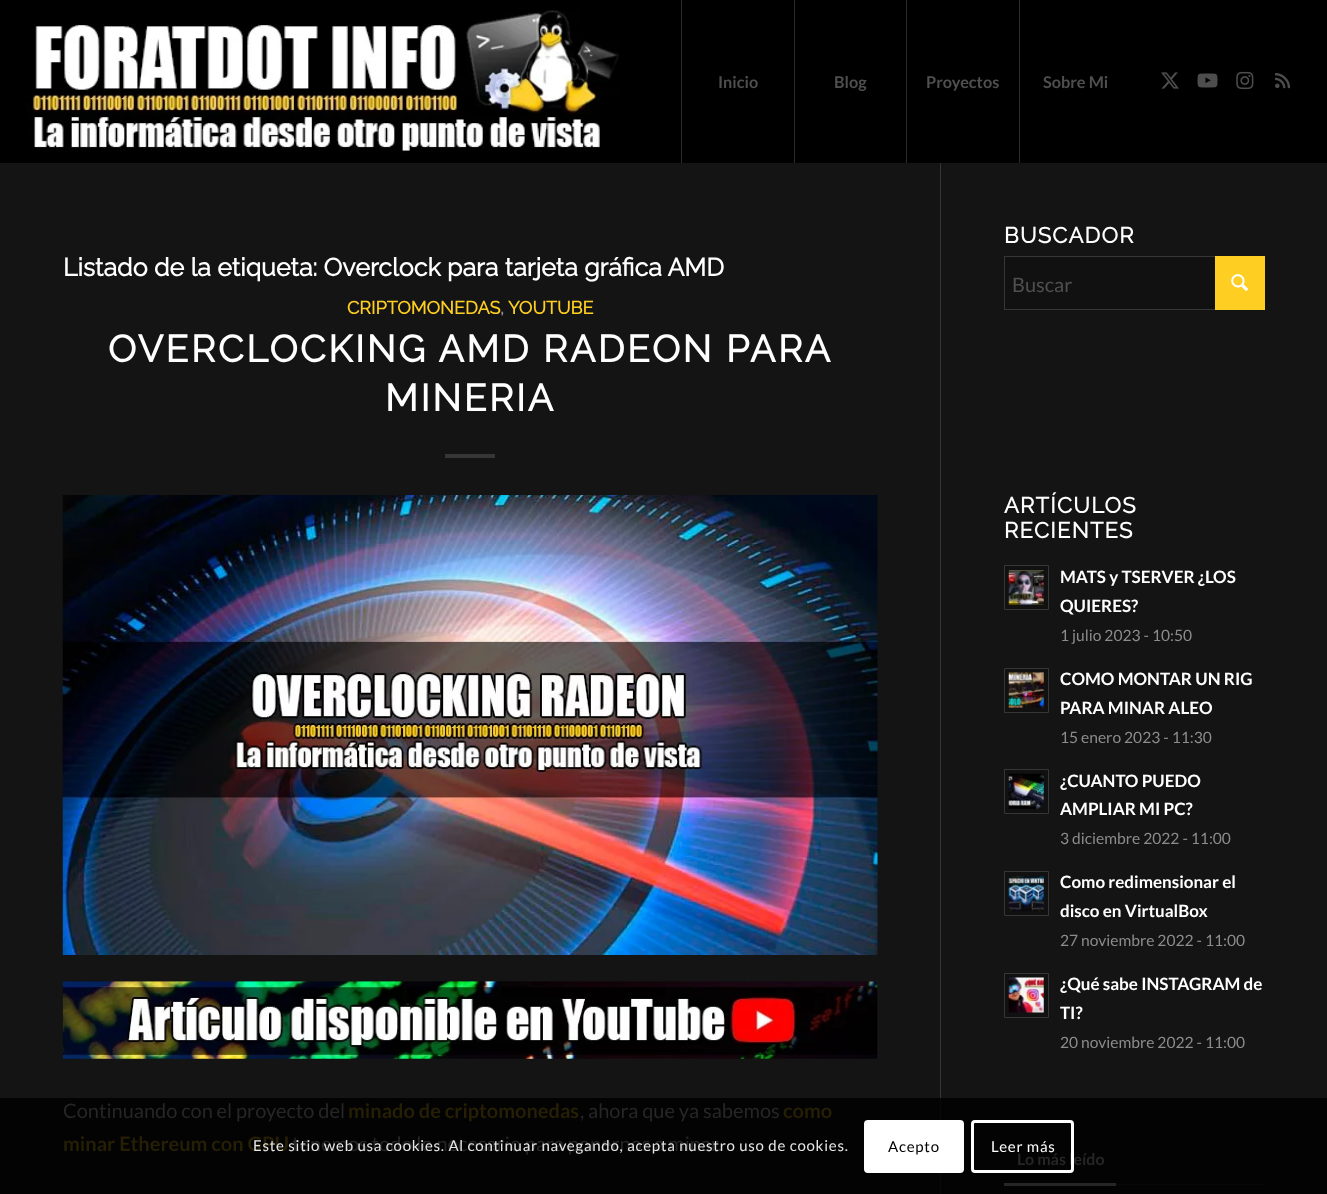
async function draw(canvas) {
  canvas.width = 1327
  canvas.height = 1194
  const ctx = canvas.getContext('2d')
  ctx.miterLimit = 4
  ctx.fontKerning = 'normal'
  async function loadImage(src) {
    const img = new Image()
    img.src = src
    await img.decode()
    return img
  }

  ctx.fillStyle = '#141414'
  ctx.fillRect(0, 0, 1327, 1194)
  ctx.fillStyle = '#363636'
  ctx.fillRect(940, 160, 1, 938)
  ctx.fillStyle = '#000'
  ctx.fillRect(0, 0, 1327, 163)
  ctx.drawImage(await loadImage('image0.png'), 26, 10, 593, 143)
  ctx.fillStyle = '#2b2b2b'
  ctx.fillRect(681, 0, 1, 163)
  ctx.font = 'bold 16.25px Lato'
  ctx.fillStyle = '#4f4f4f'
  ctx.fillText('Inicio', 718, 88)
  ctx.fillStyle = '#2b2b2b'
  ctx.fillRect(794, 0, 1, 163)
  ctx.fillStyle = '#4f4f4f'
  ctx.fillText('Blog', 834, 88)
  ctx.fillStyle = '#2b2b2b'
  ctx.fillRect(906, 0, 1, 163)
  ctx.fillStyle = '#4f4f4f'
  ctx.fillText('Proyectos', 926, 88)
  ctx.fillStyle = '#2b2b2b'
  ctx.fillRect(1019, 0, 1, 163)
  ctx.fillStyle = '#4f4f4f'
  ctx.fillText('Sobre Mi', 1043, 88)
  ctx.drawImage(await loadImage('image1.png'), 1161, 72, 18, 17)
  ctx.drawImage(await loadImage('image2.png'), 1197, 73, 21, 15)
  ctx.drawImage(await loadImage('image3.png'), 1236, 71, 18, 19)
  ctx.drawImage(await loadImage('image4.png'), 1275, 73, 16, 16)
  ctx.fillStyle = '#030303'
  ctx.fillRect(0, 1098, 1327, 96)
  ctx.fillStyle = '#080808'
  ctx.fillRect(940, 1098, 1, 96)
  ctx.font = 'bold 25px Raleway'
  ctx.fillStyle = '#fff'
  ctx.fillText('Listado de la etiqueta: Overclock para tarjeta gráfica AMD', 63, 276)
  ctx.font = 'bold 18px Raleway'
  ctx.fillStyle = '#fece22'
  ctx.fillText('CRIPTOMONEDAS', 347, 314)
  ctx.fillStyle = '#8c8c8c'
  ctx.fillText(',', 500, 314)
  ctx.fillStyle = '#fece22'
  ctx.fillText('YOUTUBE', 508, 314)
  ctx.letterSpacing = '2.5px'
  ctx.font = 'bold 37.5px Raleway'
  ctx.fillStyle = '#fff'
  ctx.fillText('OVERCLOCKING AMD RADEON PARA', 108, 362)
  ctx.fillText('MINERIA', 385, 411)
  ctx.fillStyle = '#363636'
  ctx.fillRect(445, 454, 50, 4)
  ctx.drawImage(await loadImage('image5.png'), 62, 495, 816, 460)
  ctx.drawImage(await loadImage('image6.png'), 62, 981, 816, 78)
  ctx.letterSpacing = '0px'
  ctx.font = '20px Lato'
  ctx.fillStyle = '#262626'
  ctx.fillText('Continuando con el proyecto del', 63, 1118)
  ctx.font = 'bold 20px Lato'
  ctx.fillStyle = '#261f05'
  ctx.fillText('minado de criptomonedas', 348, 1118)
  ctx.font = '20px Lato'
  ctx.fillStyle = '#262626'
  ctx.fillText(', ahora que ya sabemos', 580, 1118)
  ctx.font = 'bold 20px Lato'
  ctx.fillStyle = '#261f05'
  ctx.fillText('como', 783, 1118)
  ctx.fillText('minar Ethereum con GPU', 63, 1151)
  ctx.font = '20px Lato'
  ctx.fillStyle = '#262626'
  ctx.fillText('tenemos todo lo necesario para ponernos a minar.', 292, 1151)
  ctx.letterSpacing = '1.25px'
  ctx.font = 'bold 22px Raleway'
  ctx.fillStyle = '#fff'
  ctx.fillText('BUSCADOR', 1004, 243)
  ctx.fillStyle = '#111'
  ctx.fillRect(1005, 257, 210, 52)
  ctx.strokeStyle = '#363636'
  ctx.strokeRect(1004.5, 256.5, 260, 53)
  ctx.letterSpacing = '0px'
  ctx.font = '20px Lato'
  ctx.fillStyle = '#4f4f4f'
  ctx.fillText('Buscar', 1012, 292)
  ctx.fillStyle = '#fece22'
  ctx.fillRect(1215, 256, 50, 54)
  ctx.drawImage(await loadImage('image7.png'), 1231, 274, 17, 17)
  ctx.letterSpacing = '1.25px'
  ctx.font = 'bold 22px Raleway'
  ctx.fillStyle = '#fff'
  ctx.fillText('ARTÍCULOS', 1004, 513)
  ctx.fillText('RECIENTES', 1004, 538)
  ctx.fillStyle = '#111'
  ctx.beginPath()
  ctx.rect(1004.5, 565.5, 44, 44)
  ctx.fill()
  ctx.stroke()
  ctx.drawImage(await loadImage('image8.png'), 1008, 570, 36, 35)
  ctx.letterSpacing = '0px'
  ctx.font = 'bold 17px Lato'
  ctx.fillStyle = '#fff'
  ctx.fillText('MATS y TSERVER ¿LOS', 1060, 583)
  ctx.fillText('QUIERES?', 1060, 612)
  ctx.font = '15.6px Lato'
  ctx.fillStyle = '#8c8c8c'
  ctx.fillText('1 julio 2023 - 10:50', 1060, 641)
  ctx.fillStyle = '#111'
  ctx.beginPath()
  ctx.rect(1004.5, 668.5, 44, 44)
  ctx.fill()
  ctx.stroke()
  ctx.drawImage(await loadImage('image9.png'), 1008, 672, 36, 36)
  ctx.font = 'bold 17px Lato'
  ctx.fillStyle = '#fff'
  ctx.fillText('COMO MONTAR UN RIG', 1060, 685)
  ctx.fillText('PARA MINAR ALEO', 1060, 714)
  ctx.font = '15.6px Lato'
  ctx.fillStyle = '#8c8c8c'
  ctx.fillText('15 enero 2023 - 11:30', 1060, 743)
  ctx.fillStyle = '#111'
  ctx.beginPath()
  ctx.rect(1004.5, 769.5, 44, 44)
  ctx.fill()
  ctx.stroke()
  ctx.drawImage(await loadImage('image10.png'), 1008, 773, 36, 36)
  ctx.font = 'bold 17px Lato'
  ctx.fillStyle = '#fff'
  ctx.fillText('¿CUANTO PUEDO', 1060, 787)
  ctx.fillText('AMPLIAR MI PC?', 1060, 815)
  ctx.font = '15.6px Lato'
  ctx.fillStyle = '#8c8c8c'
  ctx.fillText('3 diciembre 2022 - 11:00', 1060, 844)
  ctx.fillStyle = '#111'
  ctx.beginPath()
  ctx.rect(1004.5, 871.5, 44, 44)
  ctx.fill()
  ctx.stroke()
  ctx.drawImage(await loadImage('image11.png'), 1008, 876, 36, 36)
  ctx.font = 'bold 17px Lato'
  ctx.fillStyle = '#fff'
  ctx.fillText('Como redimensionar el', 1060, 888)
  ctx.fillText('disco en VirtualBox', 1060, 917)
  ctx.font = '15.6px Lato'
  ctx.fillStyle = '#8c8c8c'
  ctx.fillText('27 noviembre 2022 - 11:00', 1060, 946)
  ctx.fillStyle = '#111'
  ctx.beginPath()
  ctx.rect(1004.5, 973.5, 44, 44)
  ctx.fill()
  ctx.stroke()
  ctx.drawImage(await loadImage('image12.png'), 1008, 977, 36, 36)
  ctx.font = 'bold 17px Lato'
  ctx.fillStyle = '#fff'
  ctx.fillText('¿Qué sabe INSTAGRAM de', 1060, 990)
  ctx.fillText('TI?', 1060, 1019)
  ctx.font = '15.6px Lato'
  ctx.fillStyle = '#8c8c8c'
  ctx.fillText('20 noviembre 2022 - 11:00', 1060, 1048)
  ctx.fillStyle = '#080808'
  ctx.fillRect(1116, 1184, 149, 1)
  ctx.fillStyle = '#262626'
  ctx.fillRect(1004, 1183, 112, 3)
  ctx.font = 'bold 16px Lato'
  ctx.fillText('Lo más leído', 1017, 1165)
  ctx.letterSpacing = '0.75px'
  ctx.font = '15px Lato'
  ctx.fillStyle = '#e7e7e7'
  ctx.fillText('Este sitio web usa cookies. Al continuar navegando, acepta nuestro uso de cookies.', 253, 1151)
  ctx.fillStyle = '#fff'
  ctx.beginPath()
  ctx.roundRect(864, 1120, 100, 53, 4)
  ctx.fill()
  ctx.fillStyle = '#000'
  ctx.fillText('Acepto', 888, 1152)
  ctx.beginPath()
  ctx.roundRect(972.5, 1121.5, 100, 50, 2.5)
  ctx.strokeStyle = '#fff'
  ctx.lineWidth = 3
  ctx.stroke()
  ctx.fillStyle = '#fff'
  ctx.fillText('Leer más', 991, 1152)
}

draw(document.querySelector('canvas'))
